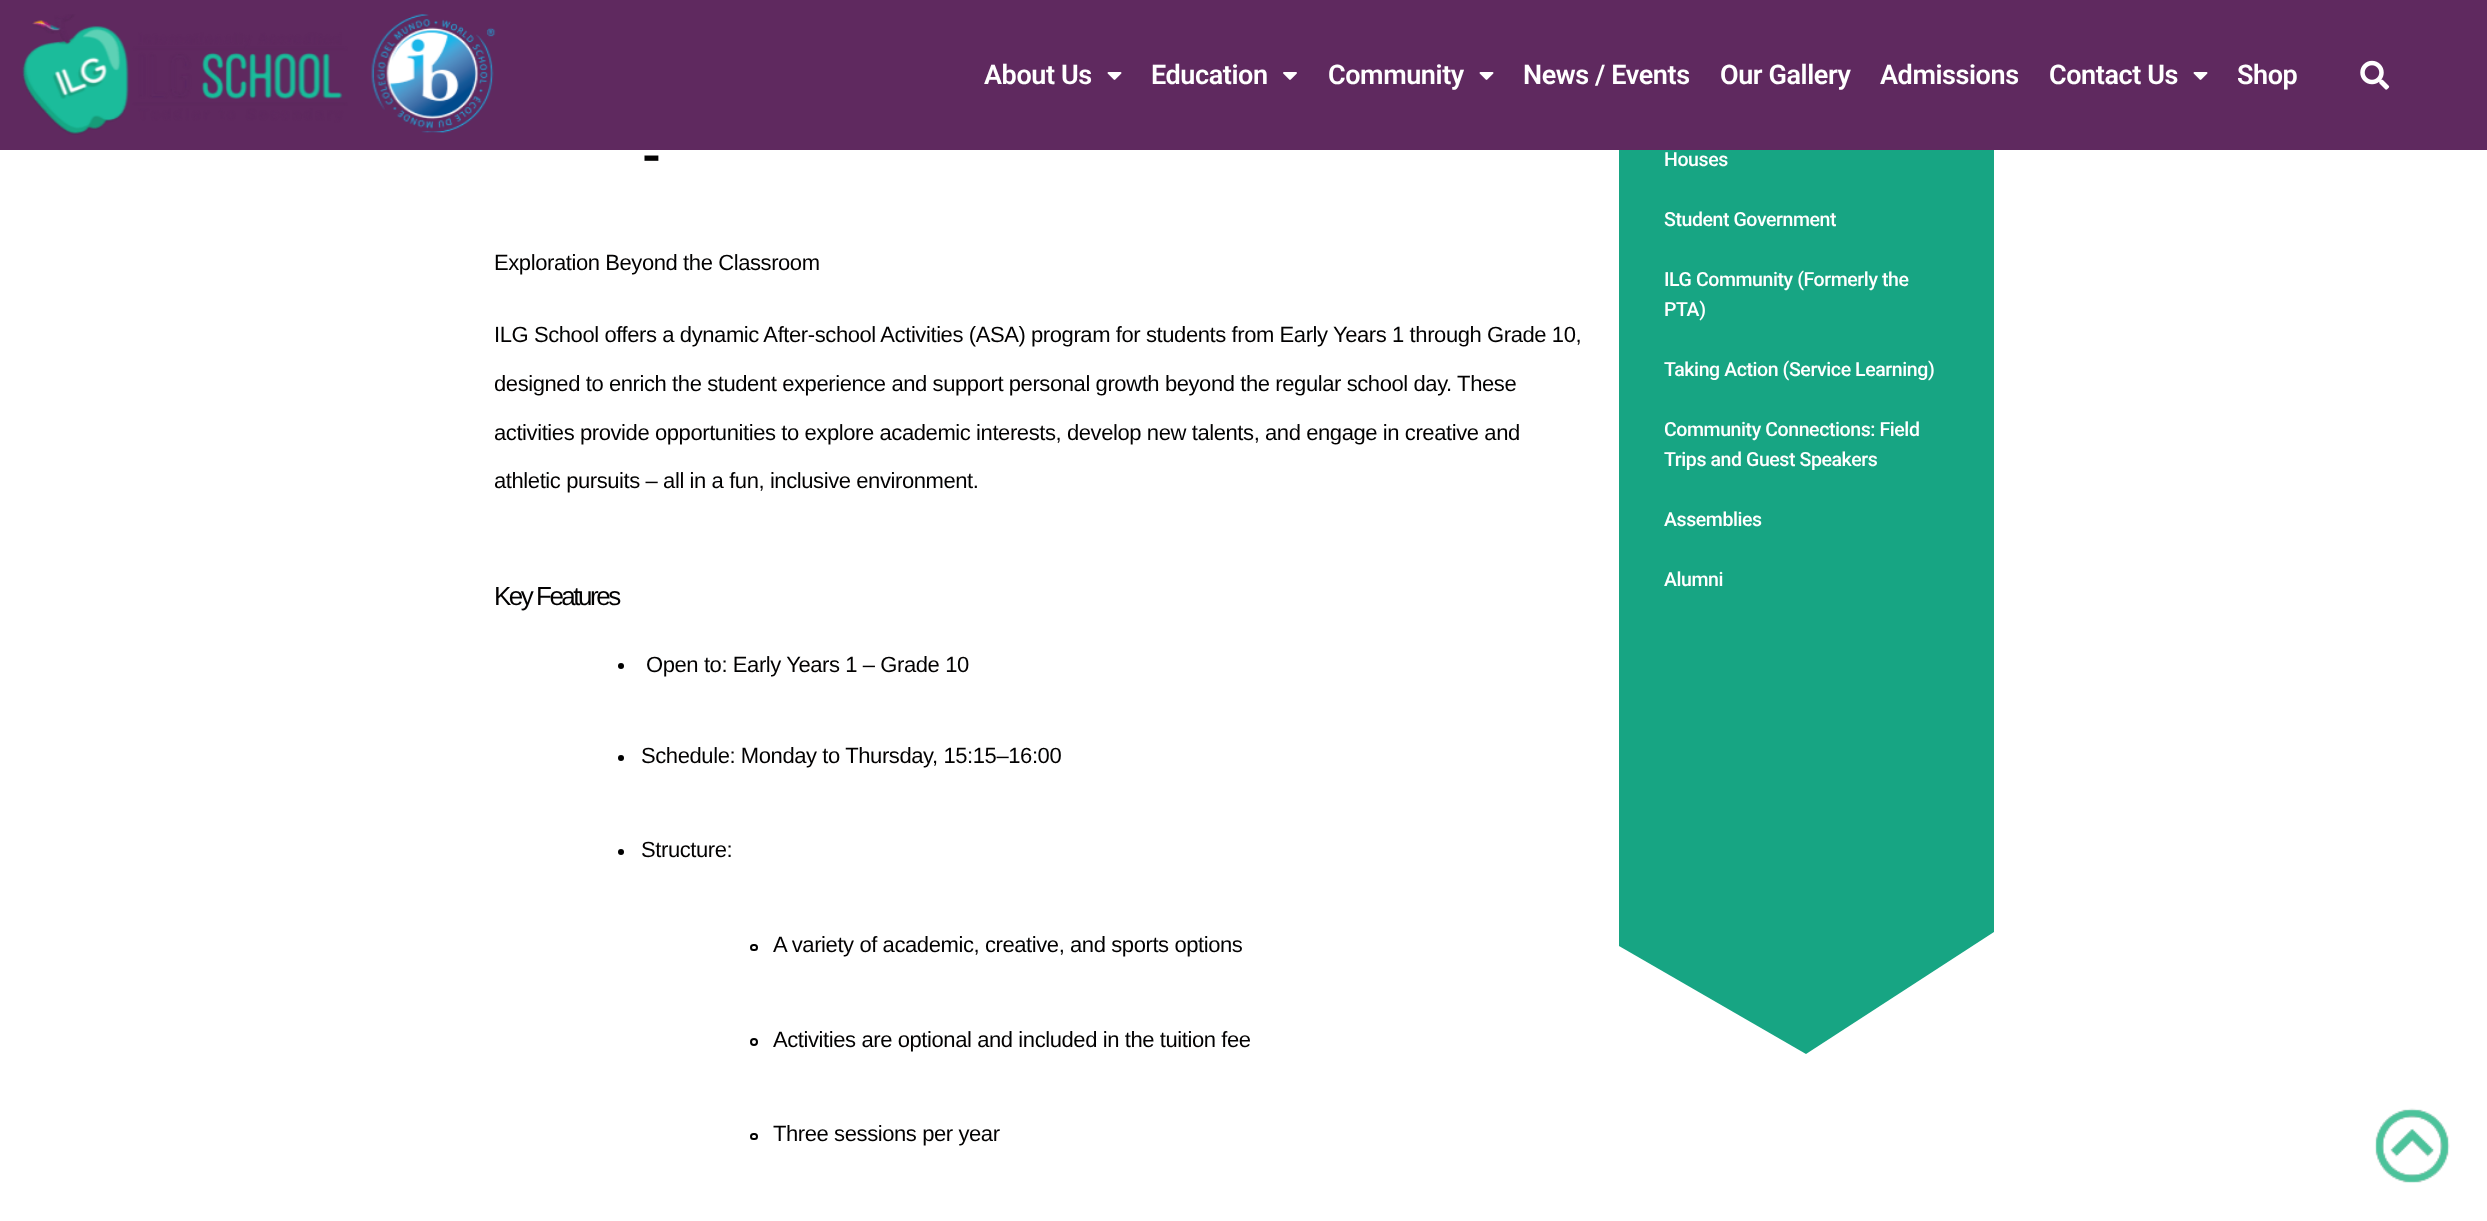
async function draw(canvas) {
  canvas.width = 2487
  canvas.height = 1221
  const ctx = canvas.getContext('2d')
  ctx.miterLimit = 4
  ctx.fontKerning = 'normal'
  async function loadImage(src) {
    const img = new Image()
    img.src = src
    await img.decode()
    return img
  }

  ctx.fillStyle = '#fff'
  ctx.fillRect(0, 0, 2487, 1221)
  ctx.fillStyle = '#17a583'
  ctx.beginPath()
  ctx.moveTo(1619, -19)
  ctx.lineTo(1994, -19)
  ctx.lineTo(1994, 932)
  ctx.lineTo(1806, 1054)
  ctx.lineTo(1619, 946)
  ctx.closePath()
  ctx.fill()
  ctx.fillStyle = '#5f295f'
  ctx.fillRect(0, 0, 2487, 150)
  ctx.drawImage(await loadImage('image0.png'), 22, 14, 474, 121)
  ctx.letterSpacing = '-0.41px'
  ctx.font = '600 27px Roboto'
  ctx.fillStyle = '#fff'
  ctx.fillText('About Us', 984, 84)
  ctx.drawImage(await loadImage('image1.png'), 1107, 72, 15, 8)
  ctx.fillText('Education', 1151, 84)
  ctx.drawImage(await loadImage('image2.png'), 1283, 72, 14, 8)
  ctx.fillText('Community', 1328, 84)
  ctx.drawImage(await loadImage('image1.png'), 1479, 72, 15, 8)
  ctx.fillText('News / Events', 1523, 84)
  ctx.fillText('Our Gallery', 1720, 84)
  ctx.fillText('Admissions', 1880, 84)
  ctx.fillText('Contact Us', 2049, 84)
  ctx.drawImage(await loadImage('image1.png'), 2193, 72, 15, 8)
  ctx.fillText('Shop', 2237, 84)
  ctx.drawImage(await loadImage('image3.png'), 2360, 60, 30, 30)
  ctx.letterSpacing = '-2px'
  ctx.font = '600 52px Roboto'
  ctx.fillStyle = '#020101'
  ctx.fillText('-', 642, 174)
  ctx.letterSpacing = '-0.41px'
  ctx.font = '22px Liberation Sans'
  ctx.fillText('Exploration Beyond the Classroom', 494, 270)
  ctx.fillText('ILG School offers a dynamic After-school Activities (ASA) program for students from Early Years 1 through Grade 10,', 494, 342)
  ctx.fillText('designed to enrich the student experience and support personal growth beyond the regular school day. These', 494, 391)
  ctx.fillText('activities provide opportunities to explore academic interests, develop new talents, and engage in creative and', 494, 440)
  ctx.fillText('athletic pursuits – all in a fun, inclusive environment.', 494, 488)
  ctx.letterSpacing = '-2.5px'
  ctx.font = '26px Liberation Sans'
  ctx.fillText('Key Features', 494, 605)
  ctx.fillStyle = '#000'
  ctx.beginPath()
  ctx.arc(621, 666, 3, 0, 2 * Math.PI)
  ctx.fill()
  ctx.letterSpacing = '-0.41px'
  ctx.font = '22px Liberation Sans'
  ctx.fillStyle = '#020101'
  ctx.fillText('Open to: Early Years 1 – Grade 10', 646, 672)
  ctx.fillStyle = '#000'
  ctx.beginPath()
  ctx.arc(621, 758, 3, 0, 2 * Math.PI)
  ctx.fill()
  ctx.fillStyle = '#020101'
  ctx.fillText('Schedule: Monday to Thursday, 15:15–16:00', 641, 763)
  ctx.fillStyle = '#000'
  ctx.beginPath()
  ctx.arc(621, 852, 3, 0, 2 * Math.PI)
  ctx.fill()
  ctx.fillStyle = '#020101'
  ctx.fillText('Structure:', 641, 857)
  ctx.beginPath()
  ctx.roundRect(751, 945, 6, 5, 2.5)
  ctx.strokeStyle = '#000'
  ctx.lineWidth = 2
  ctx.stroke()
  ctx.fillText('A variety of academic, creative, and sports options', 773, 952)
  ctx.beginPath()
  ctx.arc(754, 1042, 3, 0, 2 * Math.PI)
  ctx.stroke()
  ctx.fillText('Activities are optional and included in the tuition fee', 773, 1047)
  ctx.beginPath()
  ctx.roundRect(751, 1134, 6, 5, 2.5)
  ctx.stroke()
  ctx.fillText('Three sessions per year', 773, 1141)
  ctx.font = '500 19.5px Roboto'
  ctx.fillStyle = '#fff'
  ctx.fillText('Houses', 1664, 166)
  ctx.fillText('Student Government', 1664, 226)
  ctx.fillText('ILG Community (Formerly the', 1664, 286)
  ctx.fillText('PTA)', 1664, 316)
  ctx.fillText('Taking Action (Service Learning)', 1664, 376)
  ctx.fillText('Community Connections: Field', 1664, 436)
  ctx.fillText('Trips and Guest Speakers', 1664, 466)
  ctx.fillText('Assemblies', 1664, 526)
  ctx.fillText('Alumni', 1664, 586)
  ctx.drawImage(await loadImage('image4.png'), 2375, 1108, 75, 75)
}

draw(document.querySelector('canvas'))
